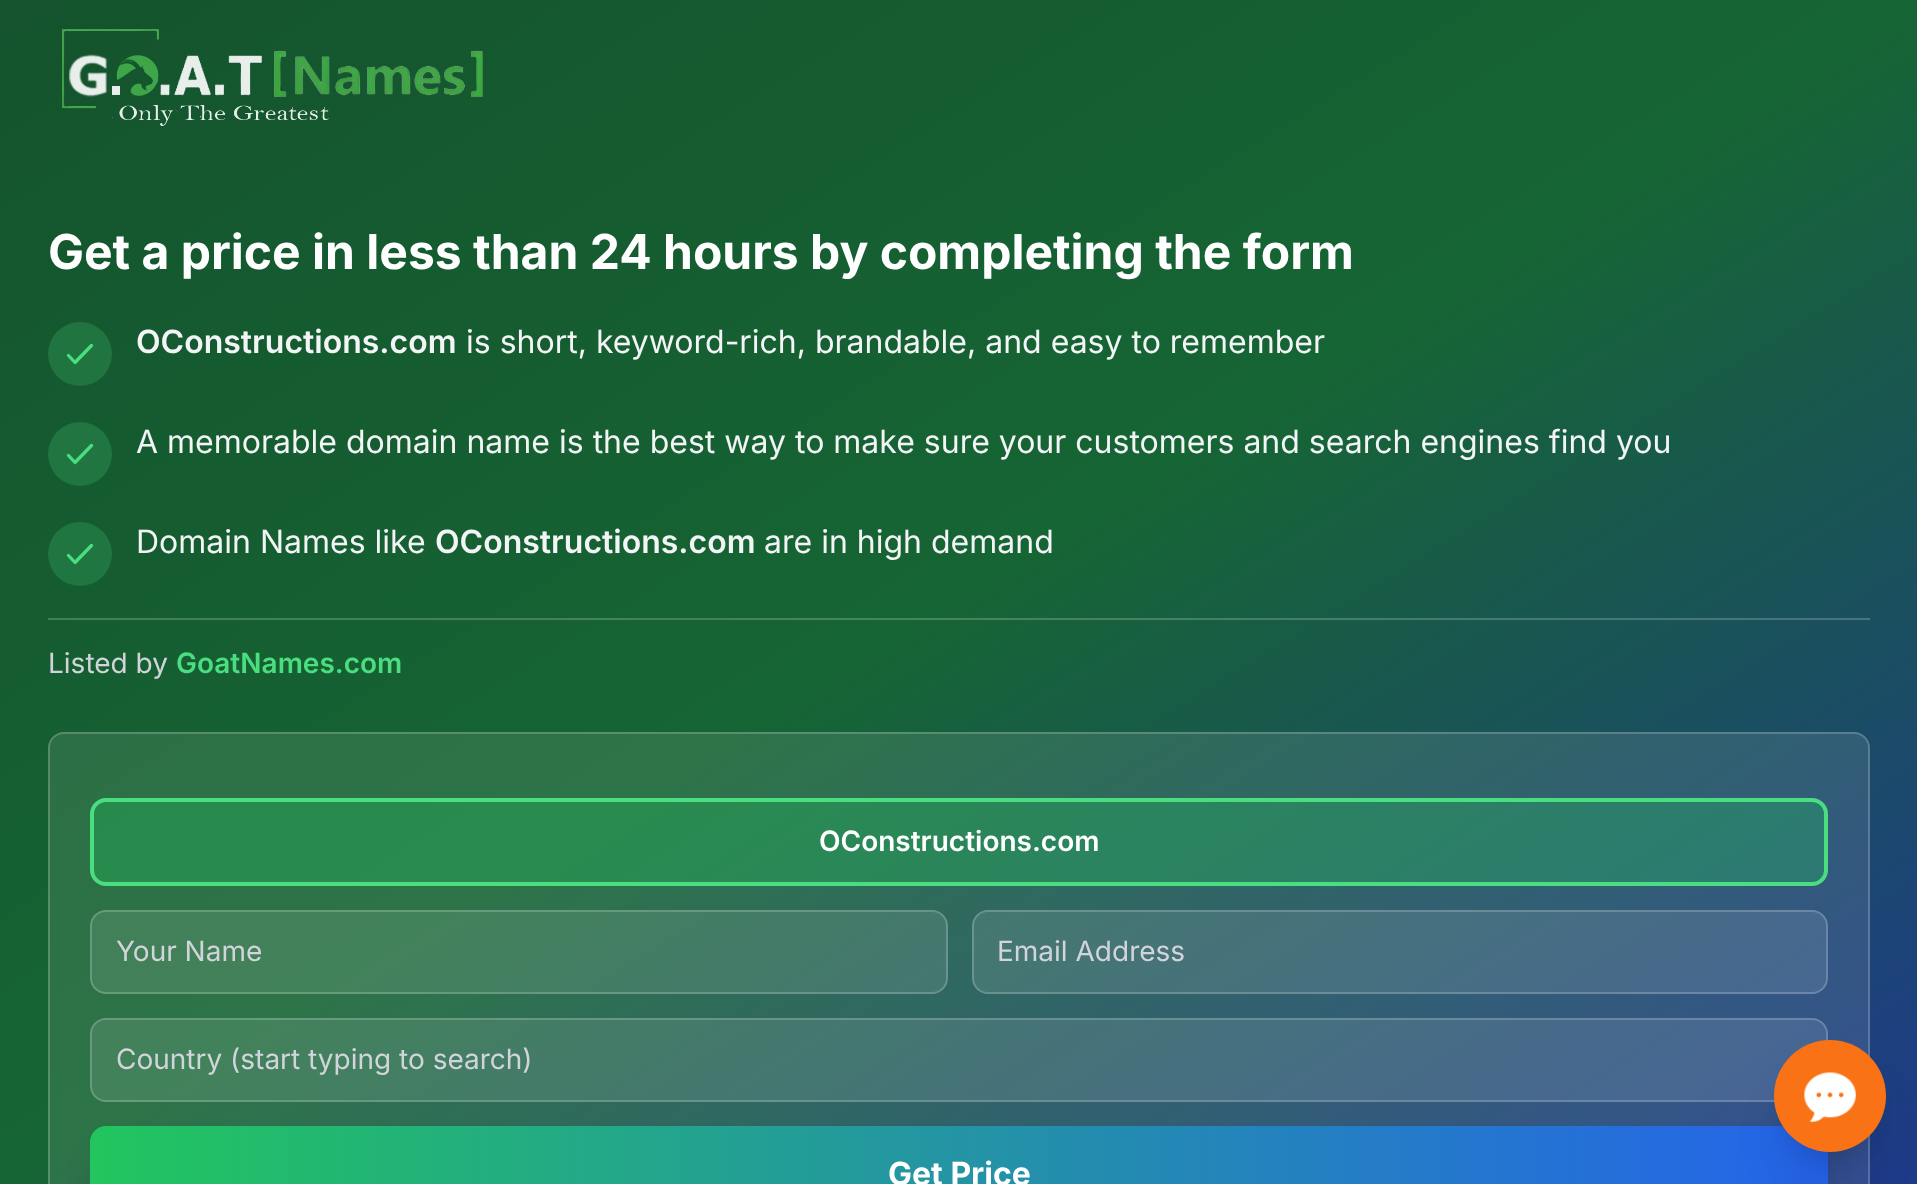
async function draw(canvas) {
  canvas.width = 1917
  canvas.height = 1184
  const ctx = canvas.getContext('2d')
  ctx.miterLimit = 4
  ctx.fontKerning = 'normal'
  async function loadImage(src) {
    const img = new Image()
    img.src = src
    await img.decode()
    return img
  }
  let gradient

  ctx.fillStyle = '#fff'
  ctx.fillRect(0, 0, 1917, 1184)
  gradient = ctx.createLinearGradient(430, -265, 1488, 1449)
  gradient.addColorStop(0, '#14532d')
  gradient.addColorStop(0.5, '#166534')
  gradient.addColorStop(1, '#1e3a8a')
  ctx.fillStyle = gradient
  ctx.fillRect(0, 0, 1917, 1184)
  gradient = ctx.createLinearGradient(430, -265, 1488, 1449)
  gradient.addColorStop(0, '#437557')
  gradient.addColorStop(0.5, '#45845d')
  gradient.addColorStop(1, '#4b61a1')
  ctx.fillStyle = gradient
  ctx.fillRect(48, 618, 1822, 2)
  ctx.drawImage(await loadImage('image0.png'), 62, 29, 421, 97)
  ctx.font = 'bold 48px Inter'
  ctx.fillStyle = '#fff'
  ctx.fillText('Get a price in less than 24 hours by completing the form', 48, 269)
  ctx.fillStyle = '#20743f'
  ctx.beginPath()
  ctx.arc(80, 354, 32, 0, 2 * Math.PI)
  ctx.fill()
  ctx.beginPath()
  ctx.moveTo(68.5, 355.5)
  ctx.lineTo(75, 362.5)
  ctx.lineTo(91.5, 345.5)
  ctx.strokeStyle = '#4ade80'
  ctx.lineWidth = 3.3
  ctx.lineCap = 'round'
  ctx.lineJoin = 'round'
  ctx.stroke()
  ctx.font = '600 32px Inter'
  ctx.fillStyle = '#f3f4f6'
  ctx.fillText('OConstructions.com', 136, 353)
  ctx.font = '32px Inter'
  ctx.fillText('is short, keyword-rich, brandable, and easy to remember', 466, 353)
  ctx.fillStyle = '#207540'
  ctx.beginPath()
  ctx.arc(80, 454, 32, 0, 2 * Math.PI)
  ctx.fill()
  ctx.beginPath()
  ctx.moveTo(68.5, 455.5)
  ctx.lineTo(75, 462.5)
  ctx.lineTo(91.5, 445.5)
  ctx.stroke()
  ctx.fillStyle = '#f3f4f6'
  ctx.fillText('A memorable domain name is the best way to make sure your customers and search engines find you', 136, 453)
  ctx.fillStyle = '#207641'
  ctx.beginPath()
  ctx.arc(80, 554, 32, 0, 2 * Math.PI)
  ctx.fill()
  ctx.beginPath()
  ctx.moveTo(68.5, 555.5)
  ctx.lineTo(75, 562.5)
  ctx.lineTo(91.5, 545.5)
  ctx.stroke()
  ctx.fillStyle = '#f3f4f6'
  ctx.fillText('Domain Names like', 136, 553)
  ctx.font = '600 32px Inter'
  ctx.fillText('OConstructions.com', 435, 553)
  ctx.font = '32px Inter'
  ctx.fillText('are in high demand', 764, 553)
  ctx.font = '28px Inter'
  ctx.fillStyle = '#d1d5db'
  ctx.fillText('Listed by', 48, 673)
  ctx.font = '600 28px Inter'
  ctx.fillStyle = '#4ade80'
  ctx.fillText('GoatNames.com', 176, 673)
  ctx.fillStyle = '#ffffff1a'
  ctx.beginPath()
  ctx.roundRect(48, 732, 1822, 452, [16, 16, 0, 0])
  ctx.fill()
  ctx.beginPath()
  ctx.roundRect(49, 733, 1820, 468, 15)
  ctx.strokeStyle = '#ffffff33'
  ctx.lineWidth = 2
  ctx.lineJoin = 'miter'
  ctx.stroke()
  ctx.fillStyle = '#22c55e4d'
  ctx.beginPath()
  ctx.roundRect(92, 800, 1734, 84, 14)
  ctx.fill()
  ctx.strokeStyle = '#4ade80'
  ctx.lineWidth = 4
  ctx.stroke()
  ctx.fillStyle = '#fff'
  ctx.fillText('OConstructions.com', 819, 851)
  ctx.fillStyle = '#ffffff1a'
  ctx.beginPath()
  ctx.roundRect(90, 910, 858, 84, 16)
  ctx.fill()
  ctx.beginPath()
  ctx.roundRect(91, 911, 856, 82, 15)
  ctx.strokeStyle = '#ffffff33'
  ctx.lineWidth = 2
  ctx.stroke()
  ctx.font = '28px Inter'
  ctx.fillStyle = '#d1d5db'
  ctx.fillText('Your Name', 116, 961)
  ctx.fillStyle = '#ffffff1a'
  ctx.beginPath()
  ctx.roundRect(972, 910, 856, 84, 16)
  ctx.fill()
  ctx.beginPath()
  ctx.roundRect(973, 911, 854, 82, 15)
  ctx.stroke()
  ctx.fillStyle = '#d1d5db'
  ctx.fillText('Email Address', 997, 961)
  ctx.fillStyle = '#ffffff1a'
  ctx.beginPath()
  ctx.roundRect(90, 1018, 1738, 84, 16)
  ctx.fill()
  ctx.beginPath()
  ctx.roundRect(91, 1019, 1736, 82, 15)
  ctx.stroke()
  ctx.fillStyle = '#d1d5db'
  ctx.fillText('Country (start typing to search)', 116, 1069)
  ctx.fillStyle = '#0000001a'
  ctx.filter = 'blur(15px)'
  ctx.beginPath()
  ctx.roundRect(96, 1152, 1726, 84, 10)
  ctx.fill()
  ctx.filter = 'none'
  gradient = ctx.createLinearGradient(90, 1174, 1828, 1174)
  gradient.addColorStop(0, '#22c55e')
  gradient.addColorStop(1, '#2563eb')
  ctx.fillStyle = gradient
  ctx.beginPath()
  ctx.roundRect(90, 1126, 1738, 58, [16, 16, 0, 0])
  ctx.fill()
  ctx.font = 'bold 32px Inter'
  ctx.fillStyle = '#fff'
  ctx.fillText('Get Price', 888, 1185)
  ctx.fillStyle = '#0000001a'
  ctx.filter = 'blur(10px)'
  ctx.beginPath()
  ctx.roundRect(1786, 1068, 88, 88, 44)
  ctx.fill()
  ctx.filter = 'none'
  ctx.filter = 'blur(25px)'
  ctx.beginPath()
  ctx.roundRect(1784, 1090, 92, 92, 46)
  ctx.fill()
  ctx.filter = 'none'
  ctx.fillStyle = '#f97316'
  ctx.beginPath()
  ctx.arc(1830, 1096, 56, 0, 2 * Math.PI)
  ctx.fill()
  ctx.drawImage(await loadImage('image1.png'), 1804, 1072, 52, 50)
}

draw(document.querySelector('canvas'))
